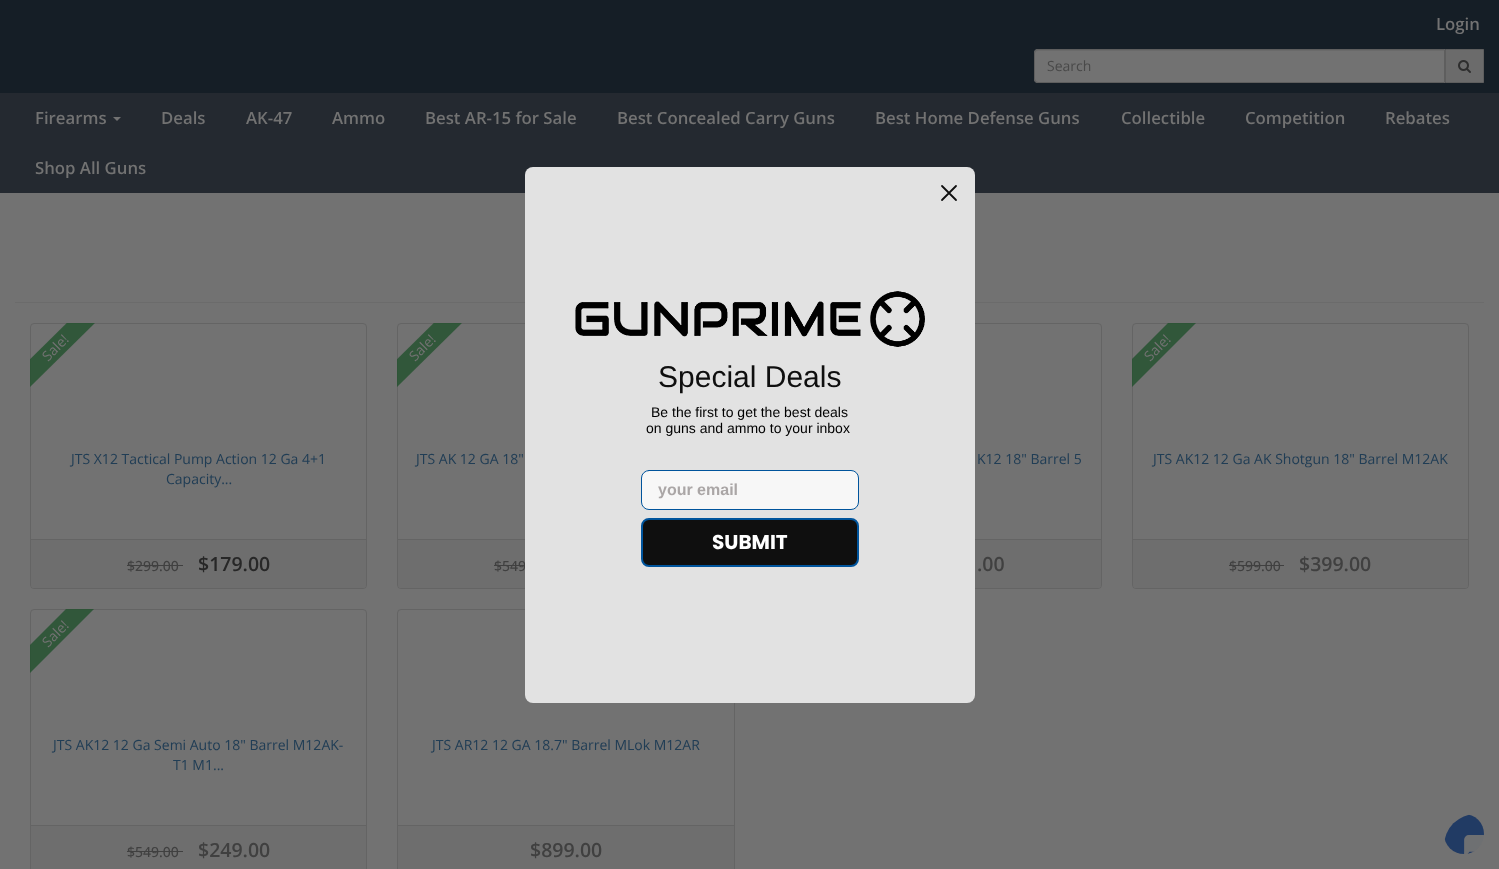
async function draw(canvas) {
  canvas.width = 1499
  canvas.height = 869
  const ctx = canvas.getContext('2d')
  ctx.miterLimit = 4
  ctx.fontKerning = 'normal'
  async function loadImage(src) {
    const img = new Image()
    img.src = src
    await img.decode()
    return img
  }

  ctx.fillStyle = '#727272'
  ctx.fillRect(0, 0, 1499, 869)
  ctx.fillStyle = '#151e26'
  ctx.fillRect(0, 0, 1499, 93)
  ctx.font = '600 16.75px Open Sans'
  ctx.fillStyle = '#727272'
  ctx.fillText('Login', 1436, 30)
  ctx.beginPath()
  ctx.roundRect(1034, 49, 411, 34, [4, 0, 0, 4])
  ctx.fill()
  ctx.fillStyle = '#6a6a6a'
  ctx.beginPath()
  ctx.moveTo(1038, 51)
  ctx.lineTo(1444, 51)
  ctx.lineTo(1444, 50)
  ctx.lineTo(1038, 50)
  ctx.bezierCurveTo(1036, 50, 1035, 52, 1035, 54)
  ctx.bezierCurveTo(1035, 52, 1036, 51, 1038, 51)
  ctx.closePath()
  ctx.fill()
  ctx.beginPath()
  ctx.roundRect(1034.5, 49.5, 410, 33, [3.5, 0, 0, 3.5])
  ctx.strokeStyle = '#5e5e5e'
  ctx.stroke()
  ctx.font = '14px Open Sans'
  ctx.fillStyle = '#494949'
  ctx.fillText('Search', 1047, 71)
  ctx.fillStyle = '#6b6b6b'
  ctx.beginPath()
  ctx.rect(1445.5, 49.5, 38, 33)
  ctx.fill()
  ctx.stroke()
  ctx.drawImage(await loadImage('image0.png'), 1458, 60, 13, 13)
  ctx.fillStyle = '#242930'
  ctx.fillRect(0, 93, 1499, 100)
  ctx.font = '600 16.75px Open Sans'
  ctx.fillStyle = '#727272'
  ctx.fillText('Firearms', 35, 124)
  ctx.beginPath()
  ctx.moveTo(113, 117)
  ctx.lineTo(121, 117)
  ctx.lineTo(117, 121)
  ctx.closePath()
  ctx.fill()
  ctx.fillText('Deals', 161, 124)
  ctx.fillText('AK-47', 246, 124)
  ctx.fillText('Ammo', 332, 124)
  ctx.fillText('Best AR-15 for Sale', 425, 124)
  ctx.fillText('Best Concealed Carry Guns', 617, 124)
  ctx.fillText('Best Home Defense Guns', 875, 124)
  ctx.fillText('Collectible', 1121, 124)
  ctx.fillText('Competition', 1245, 124)
  ctx.fillText('Rebates', 1385, 124)
  ctx.fillText('Shop All Guns', 35, 174)
  ctx.fillStyle = '#6b6b6b'
  ctx.fillRect(15, 302, 1469, 1)
  ctx.beginPath()
  ctx.roundRect(30.5, 323.5, 336, 265, 3.5)
  ctx.strokeStyle = '#646464'
  ctx.stroke()
  ctx.save()
  ctx.beginPath()
  ctx.rect(30, 323, 65, 65)
  ctx.clip()
  ctx.fillStyle = '#1c4f28bf'
  ctx.beginPath()
  ctx.moveTo(13, 376)
  ctx.lineTo(84, 306)
  ctx.lineTo(98, 320)
  ctx.lineTo(27, 390)
  ctx.closePath()
  ctx.fill()
  ctx.restore()
  ctx.font = '14px Open Sans'
  ctx.fillStyle = '#727272'
  ctx.save()
  ctx.translate(48, 362)
  ctx.rotate(-45 * Math.PI / 180)
  ctx.fillText('Sale!', 0, 0)
  ctx.restore()
  ctx.fillStyle = '#203d55'
  ctx.fillText('JTS X12 Tactical Pump Action 12 Ga 4+1', 71, 464)
  ctx.fillText('Capacity...', 166, 484)
  ctx.fillStyle = '#6e6e6e'
  ctx.beginPath()
  ctx.roundRect(31, 539, 335, 49, [0, 0, 3, 3])
  ctx.fill()
  ctx.fillStyle = '#646464'
  ctx.fillRect(31, 539, 335, 1)
  ctx.font = '500 14px Open Sans'
  ctx.fillStyle = '#404040'
  ctx.fillText('$299.00', 127, 571)
  ctx.fillRect(127, 565, 56, 1)
  ctx.font = '600 19.5px Open Sans'
  ctx.fillStyle = '#272727'
  ctx.fillText('$179.00', 198, 571)
  ctx.beginPath()
  ctx.roundRect(397.5, 323.5, 337, 265, 3.5)
  ctx.stroke()
  ctx.save()
  ctx.beginPath()
  ctx.rect(397, 323, 65, 65)
  ctx.clip()
  ctx.fillStyle = '#1c4f28bf'
  ctx.beginPath()
  ctx.moveTo(380, 376)
  ctx.lineTo(451, 306)
  ctx.lineTo(465, 320)
  ctx.lineTo(394, 390)
  ctx.closePath()
  ctx.fill()
  ctx.restore()
  ctx.font = '14px Open Sans'
  ctx.fillStyle = '#727272'
  ctx.save()
  ctx.translate(415, 362)
  ctx.rotate(-45 * Math.PI / 180)
  ctx.fillText('Sale!', 0, 0)
  ctx.restore()
  ctx.fillStyle = '#203d55'
  ctx.fillText('JTS AK 12 GA 18"', 416, 464)
  ctx.fillStyle = '#6e6e6e'
  ctx.beginPath()
  ctx.roundRect(398, 539, 336, 49, [0, 0, 3, 3])
  ctx.fill()
  ctx.fillStyle = '#646464'
  ctx.fillRect(398, 539, 127, 1)
  ctx.font = '500 14px Open Sans'
  ctx.fillStyle = '#404040'
  ctx.fillText('$549', 494, 571)
  ctx.fillRect(494, 565, 31, 1)
  ctx.beginPath()
  ctx.roundRect(765.5, 323.5, 336, 265, 3.5)
  ctx.stroke()
  ctx.font = '14px Open Sans'
  ctx.fillStyle = '#203d55'
  ctx.fillText('K12 18" Barrel 5', 977, 464)
  ctx.fillStyle = '#6e6e6e'
  ctx.beginPath()
  ctx.roundRect(766, 539, 335, 49, [0, 0, 3, 3])
  ctx.fill()
  ctx.fillStyle = '#646464'
  ctx.fillRect(975, 539, 126, 1)
  ctx.font = '600 19.5px Open Sans'
  ctx.fillStyle = '#404040'
  ctx.fillText('.00', 977, 571)
  ctx.beginPath()
  ctx.roundRect(1132.5, 323.5, 336, 265, 3.5)
  ctx.stroke()
  ctx.save()
  ctx.beginPath()
  ctx.rect(1132, 323, 65, 65)
  ctx.clip()
  ctx.fillStyle = '#1c4f28bf'
  ctx.beginPath()
  ctx.moveTo(1115, 376)
  ctx.lineTo(1185, 306)
  ctx.lineTo(1199, 320)
  ctx.lineTo(1129, 390)
  ctx.closePath()
  ctx.fill()
  ctx.restore()
  ctx.font = '14px Open Sans'
  ctx.fillStyle = '#727272'
  ctx.save()
  ctx.translate(1150, 362)
  ctx.rotate(-45 * Math.PI / 180)
  ctx.fillText('Sale!', 0, 0)
  ctx.restore()
  ctx.fillStyle = '#203d55'
  ctx.fillText('JTS AK12 12 Ga AK Shotgun 18" Barrel M12AK', 1153, 464)
  ctx.fillStyle = '#6e6e6e'
  ctx.beginPath()
  ctx.roundRect(1133, 539, 335, 49, [0, 0, 3, 3])
  ctx.fill()
  ctx.fillStyle = '#646464'
  ctx.fillRect(1133, 539, 335, 1)
  ctx.font = '500 14px Open Sans'
  ctx.fillStyle = '#404040'
  ctx.fillText('$599.00', 1229, 571)
  ctx.fillRect(1229, 565, 55, 1)
  ctx.font = '600 19.5px Open Sans'
  ctx.fillText('$399.00', 1299, 571)
  ctx.beginPath()
  ctx.roundRect(30.5, 609.5, 336, 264, 3.5)
  ctx.stroke()
  ctx.save()
  ctx.beginPath()
  ctx.rect(30, 609, 65, 65)
  ctx.clip()
  ctx.fillStyle = '#1c4f28bf'
  ctx.beginPath()
  ctx.moveTo(13, 662)
  ctx.lineTo(84, 591)
  ctx.lineTo(98, 605)
  ctx.lineTo(27, 676)
  ctx.closePath()
  ctx.fill()
  ctx.restore()
  ctx.font = '14px Open Sans'
  ctx.fillStyle = '#727272'
  ctx.save()
  ctx.translate(48, 648)
  ctx.rotate(-45 * Math.PI / 180)
  ctx.fillText('Sale!', 0, 0)
  ctx.restore()
  ctx.fillStyle = '#203d55'
  ctx.fillText('JTS AK12 12 Ga Semi Auto 18" Barrel M12AK-', 53, 750)
  ctx.fillText('T1 M1...', 173, 770)
  ctx.fillStyle = '#6e6e6e'
  ctx.fillRect(31, 826, 335, 43)
  ctx.fillStyle = '#646464'
  ctx.fillRect(31, 825, 335, 1)
  ctx.font = '500 14px Open Sans'
  ctx.fillStyle = '#404040'
  ctx.fillText('$549.00', 127, 857)
  ctx.fillRect(127, 851, 56, 1)
  ctx.font = '600 19.5px Open Sans'
  ctx.fillText('$249.00', 198, 857)
  ctx.beginPath()
  ctx.roundRect(397.5, 609.5, 337, 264, 3.5)
  ctx.stroke()
  ctx.font = '14px Open Sans'
  ctx.fillStyle = '#203d55'
  ctx.fillText('JTS AR12 12 GA 18.7" Barrel MLok M12AR', 432, 750)
  ctx.fillStyle = '#6e6e6e'
  ctx.fillRect(398, 826, 336, 43)
  ctx.fillStyle = '#646464'
  ctx.fillRect(398, 825, 336, 1)
  ctx.font = '600 19.5px Open Sans'
  ctx.fillStyle = '#404040'
  ctx.fillText('$899.00', 530, 857)
  ctx.fillStyle = '#e2e2e2'
  ctx.beginPath()
  ctx.roundRect(525, 167, 450, 536, 8)
  ctx.fill()
  ctx.beginPath()
  ctx.moveTo(942, 186)
  ctx.lineTo(956, 200)
  ctx.moveTo(942, 200)
  ctx.lineTo(956, 186)
  ctx.closePath()
  ctx.strokeStyle = '#0f0f0f'
  ctx.lineWidth = 1.8
  ctx.lineCap = 'round'
  ctx.lineJoin = 'round'
  ctx.stroke()
  ctx.drawImage(await loadImage('image1.png'), 575, 291, 350, 56)
  ctx.font = '30px Liberation Sans'
  ctx.fillStyle = '#0f0f0f'
  ctx.fillText('Special Deals', 658, 387)
  ctx.font = '14px Liberation Sans'
  ctx.fillStyle = '#000'
  ctx.fillText('Be the first to get the best deals', 651, 417)
  ctx.fillText('on guns and ammo to your inbox', 646, 433)
  ctx.fillStyle = '#f7f7f7'
  ctx.beginPath()
  ctx.roundRect(641.5, 470.5, 217, 39, 7.5)
  ctx.fill()
  ctx.strokeStyle = '#00549c'
  ctx.lineWidth = 1
  ctx.lineJoin = 'miter'
  ctx.stroke()
  ctx.font = 'bold 16px Liberation Sans'
  ctx.fillStyle = '#aaa6a6'
  ctx.fillText('your email', 658, 495)
  ctx.fillStyle = '#0f0f0f'
  ctx.beginPath()
  ctx.roundRect(642, 519, 216, 47, 7)
  ctx.fill()
  ctx.lineWidth = 2
  ctx.stroke()
  ctx.font = 'bold 20px Poppins'
  ctx.fillStyle = '#fff'
  ctx.fillText('SUBMIT', 712, 549)
  ctx.drawImage(await loadImage('image2.png'), 1444, 814, 40, 40)
}

draw(document.querySelector('canvas'))
